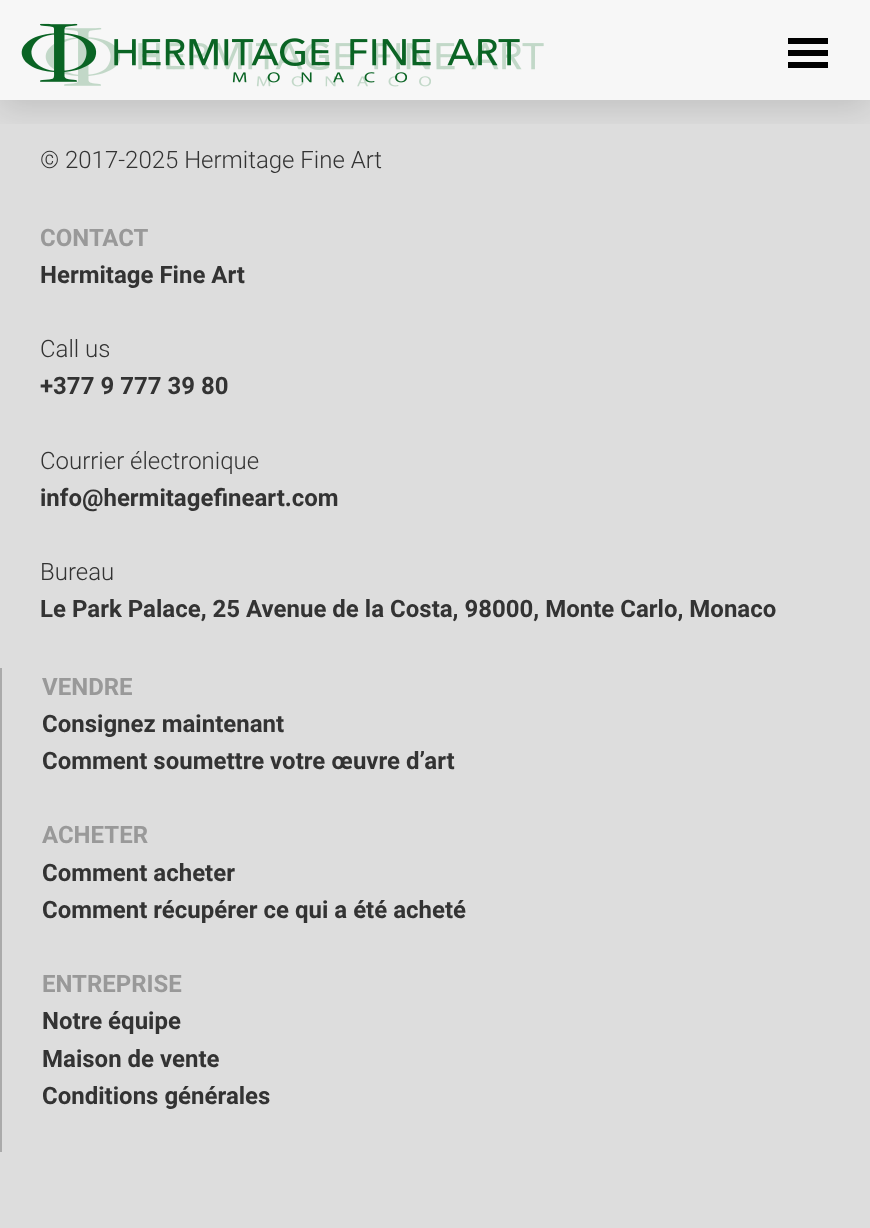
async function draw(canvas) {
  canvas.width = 870
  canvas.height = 1228
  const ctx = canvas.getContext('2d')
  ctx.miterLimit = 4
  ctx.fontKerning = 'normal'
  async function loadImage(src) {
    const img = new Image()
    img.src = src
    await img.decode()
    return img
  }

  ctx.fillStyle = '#ddd'
  ctx.fillRect(0, 0, 870, 1228)
  ctx.fillStyle = '#f7f7f7'
  ctx.fillRect(0, 0, 870, 100)
  ctx.drawImage(await loadImage('image1.png'), 45, 27, 499, 60)
  ctx.save()
  ctx.beginPath()
  ctx.rect(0, 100, 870, 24)
  ctx.clip()
  ctx.fillStyle = '#00000021'
  ctx.filter = 'blur(16px)'
  ctx.beginPath()
  ctx.rect(0, 8, 870, 100)
  ctx.fill()
  ctx.filter = 'none'
  ctx.restore()
  ctx.drawImage(await loadImage('image0.png'), 21, 23, 499, 60)
  ctx.fillStyle = '#000'
  ctx.fillRect(788, 50, 40, 6)
  ctx.fillRect(788, 38, 40, 6)
  ctx.fillRect(788, 62, 40, 6)
  ctx.font = '300 24px Roboto'
  ctx.fillStyle = '#333'
  ctx.fillText('© 2017-2025 Hermitage Fine Art', 40, 168)
  ctx.font = 'bold 24px Roboto'
  ctx.fillStyle = '#999'
  ctx.fillText('CONTACT', 40, 246)
  ctx.fillStyle = '#333'
  ctx.fillText('Hermitage Fine Art', 40, 283)
  ctx.font = '300 24px Roboto'
  ctx.fillText('Call us', 40, 357)
  ctx.font = 'bold 24px Roboto'
  ctx.fillText('+377 9 777 39 80', 40, 394)
  ctx.font = '300 24px Roboto'
  ctx.fillText('Courrier électronique', 40, 469)
  ctx.font = 'bold 24px Roboto'
  ctx.fillText('info@hermitagefineart.com', 40, 506)
  ctx.font = '300 24px Roboto'
  ctx.fillText('Bureau', 40, 580)
  ctx.font = 'bold 24px Roboto'
  ctx.fillText('Le Park Palace, 25 Avenue de la Costa, 98000, Monte Carlo, Monaco', 40, 617)
  ctx.fillStyle = '#aaa'
  ctx.fillRect(0, 668, 2, 484)
  ctx.fillStyle = '#999'
  ctx.fillText('VENDRE', 42, 695)
  ctx.fillStyle = '#333'
  ctx.fillText('Consignez maintenant', 42, 732)
  ctx.fillText('Comment soumettre votre œuvre d’art', 42, 769)
  ctx.fillStyle = '#999'
  ctx.fillText('ACHETER', 42, 843)
  ctx.fillStyle = '#333'
  ctx.fillText('Comment acheter', 42, 881)
  ctx.fillText('Comment récupérer ce qui a été acheté', 42, 918)
  ctx.fillStyle = '#999'
  ctx.fillText('ENTREPRISE', 42, 992)
  ctx.fillStyle = '#333'
  ctx.fillText('Notre équipe', 42, 1029)
  ctx.fillText('Maison de vente', 42, 1067)
  ctx.fillText('Conditions générales', 42, 1104)
}

draw(document.querySelector('canvas'))
